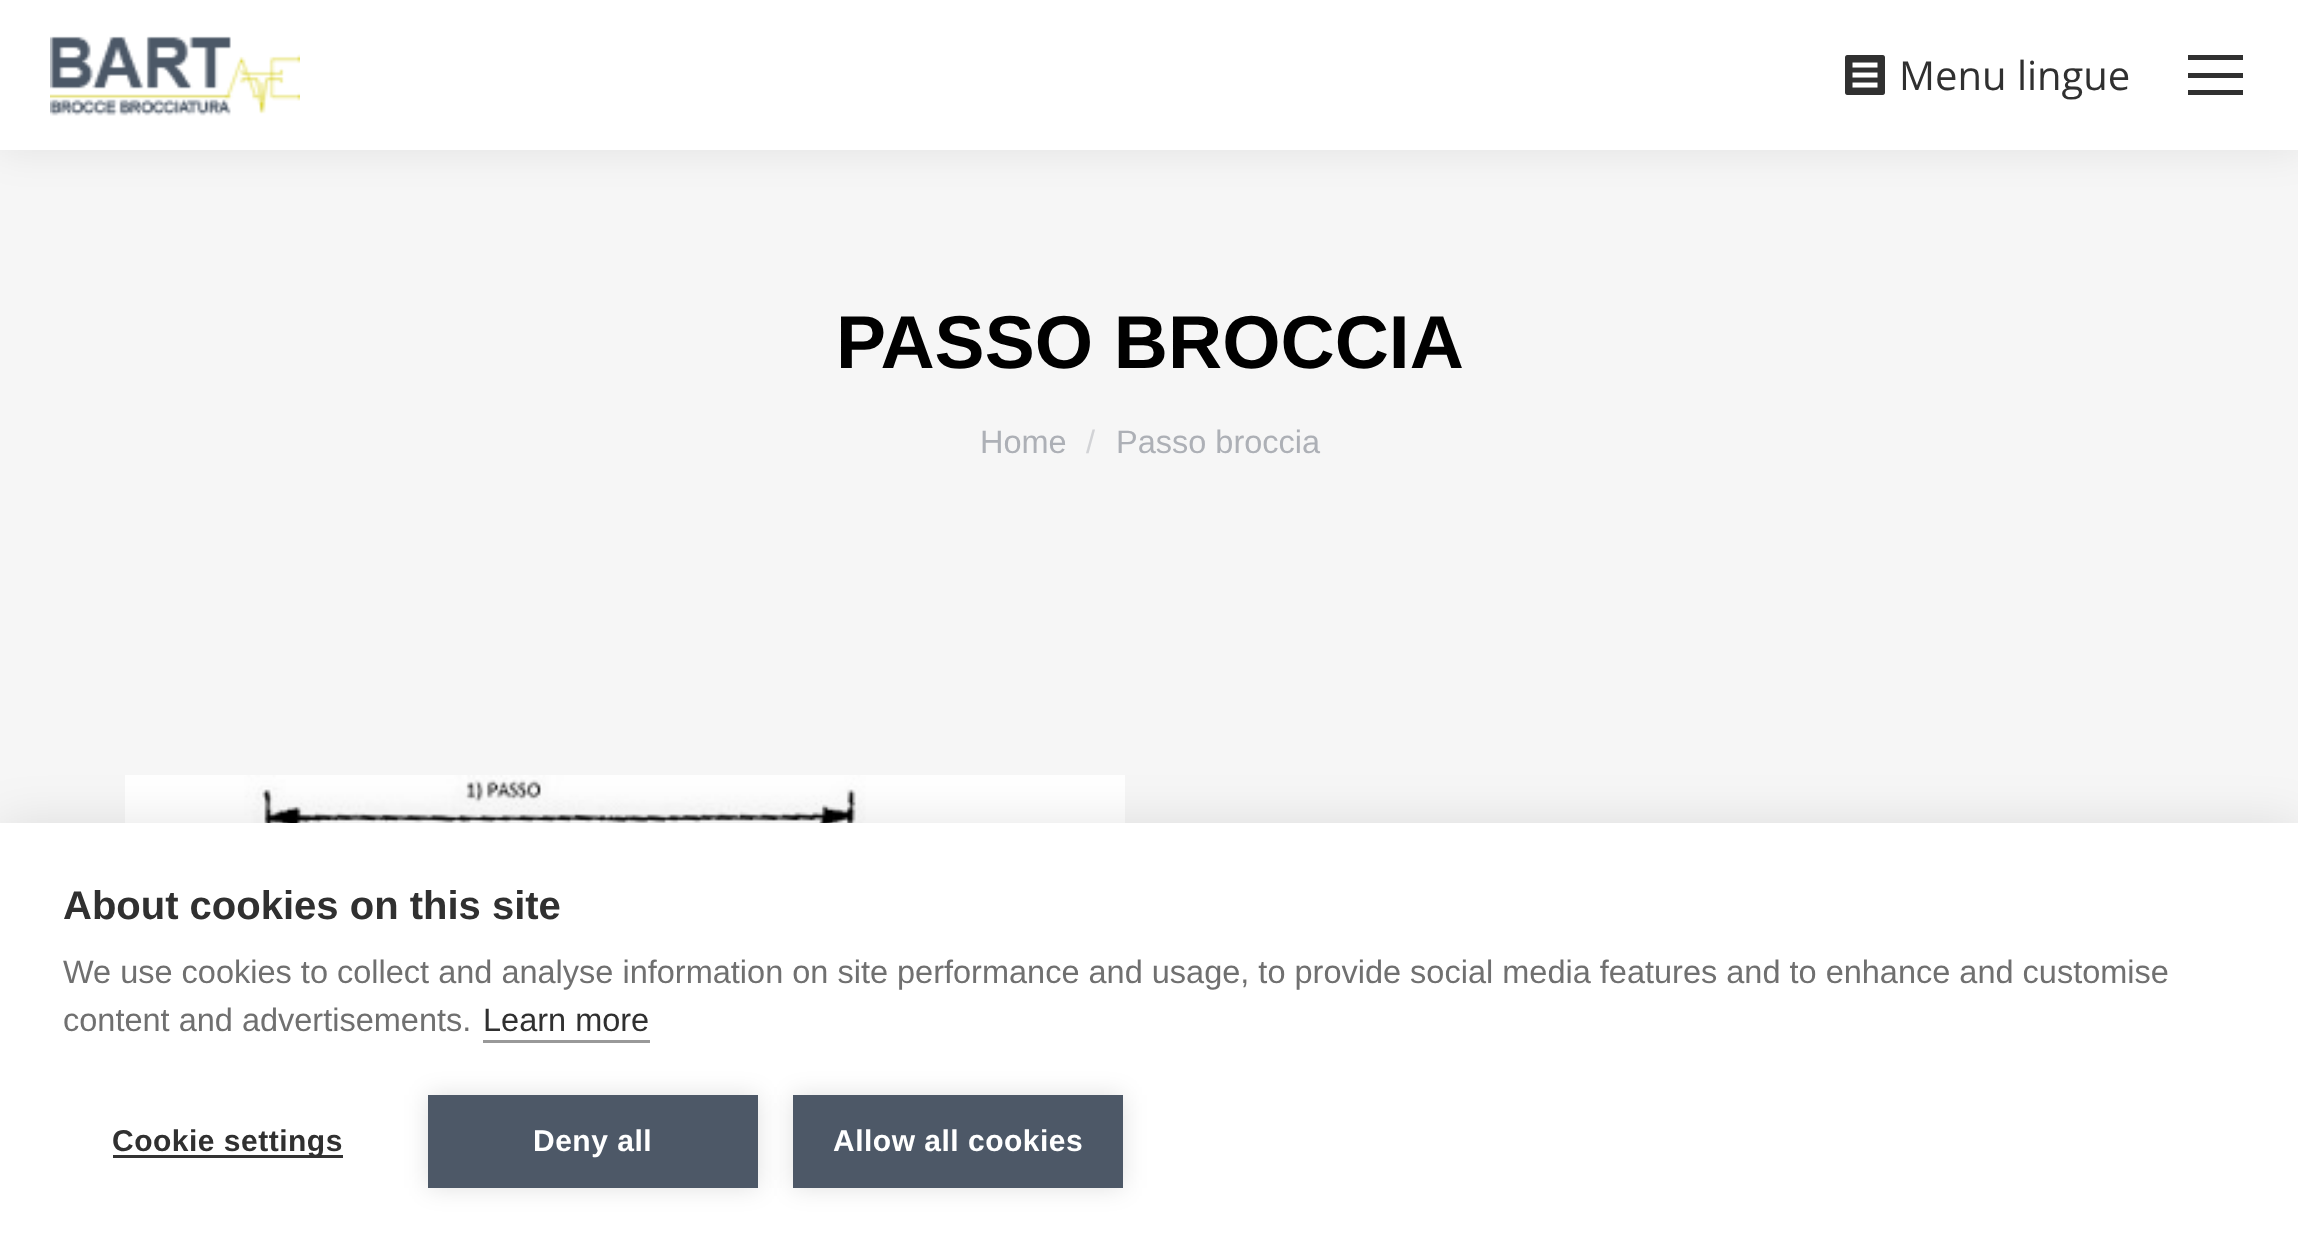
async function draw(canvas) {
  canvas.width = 2298
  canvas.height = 1250
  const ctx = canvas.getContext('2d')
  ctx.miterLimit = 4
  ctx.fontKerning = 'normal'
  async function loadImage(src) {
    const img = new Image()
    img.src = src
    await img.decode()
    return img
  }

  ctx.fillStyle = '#f6f6f6'
  ctx.fillRect(0, 0, 2298, 1250)
  ctx.fillStyle = '#00000012'
  ctx.filter = 'blur(19px)'
  ctx.beginPath()
  ctx.rect(-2, -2, 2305, 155)
  ctx.fill()
  ctx.filter = 'none'
  ctx.fillStyle = '#fff'
  ctx.fillRect(0, 0, 2298, 150)
  ctx.drawImage(await loadImage('image0.png'), 50, 36, 250, 80)
  ctx.drawImage(await loadImage('image1.png'), 1845, 55, 40, 40)
  ctx.font = '40px Open Sans'
  ctx.fillStyle = '#303030'
  ctx.fillText('Menu lingue', 1899, 90)
  ctx.fillRect(2188, 55, 55, 5)
  ctx.fillRect(2188, 73, 55, 5)
  ctx.fillRect(2188, 90, 55, 5)
  ctx.font = 'bold 75px Liberation Sans'
  ctx.fillStyle = '#000'
  ctx.fillText('PASSO BROCCIA', 836, 368)
  ctx.font = '32.5px Liberation Sans'
  ctx.fillStyle = '#adb0b6'
  ctx.fillText('Home', 980, 453)
  ctx.fillStyle = '#d2d3d6'
  ctx.fillText('/', 1086, 453)
  ctx.fillStyle = '#adb0b6'
  ctx.fillText('Passo broccia', 1116, 453)
  ctx.drawImage(await loadImage('image2.png'), 125, 775, 1000, 48)
  ctx.fillStyle = '#0000001a'
  ctx.filter = 'blur(25px)'
  ctx.beginPath()
  ctx.rect(0, 823, 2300, 427)
  ctx.fill()
  ctx.filter = 'none'
  ctx.fillStyle = '#fff'
  ctx.fillRect(0, 823, 2298, 427)
  ctx.font = 'bold 40px Liberation Sans'
  ctx.fillStyle = '#303030'
  ctx.fillText('About cookies on this site', 63, 919)
  ctx.font = '32.5px Liberation Sans'
  ctx.fillStyle = '#707070'
  ctx.fillText('We use cookies to collect and analyse information on site performance and usage, to provide social media features and to enhance and customise', 63, 983)
  ctx.fillText('content and advertisements.', 63, 1031)
  ctx.fillStyle = '#303030'
  ctx.fillText('Learn more', 483, 1031)
  ctx.fillStyle = '#999'
  ctx.fillRect(483, 1040, 167, 3)
  ctx.fillStyle = '#333'
  ctx.fillRect(113, 1155, 230, 3)
  ctx.letterSpacing = '0.5px'
  ctx.font = 'bold 30px Liberation Sans'
  ctx.fillStyle = '#303030'
  ctx.fillText('Cookie settings', 112, 1151)
  ctx.fillStyle = '#0000001f'
  ctx.filter = 'blur(12.5px)'
  ctx.beginPath()
  ctx.rect(428, 1095, 330, 93)
  ctx.fill()
  ctx.filter = 'none'
  ctx.fillStyle = '#4d5867'
  ctx.fillRect(428, 1095, 330, 93)
  ctx.fillStyle = '#fff'
  ctx.fillText('Deny all', 533, 1151)
  ctx.fillStyle = '#0000001f'
  ctx.filter = 'blur(12.5px)'
  ctx.beginPath()
  ctx.rect(793, 1095, 330, 93)
  ctx.fill()
  ctx.filter = 'none'
  ctx.fillStyle = '#4d5867'
  ctx.fillRect(793, 1095, 330, 93)
  ctx.fillStyle = '#fff'
  ctx.fillText('Allow all cookies', 833, 1151)
}

draw(document.querySelector('canvas'))
